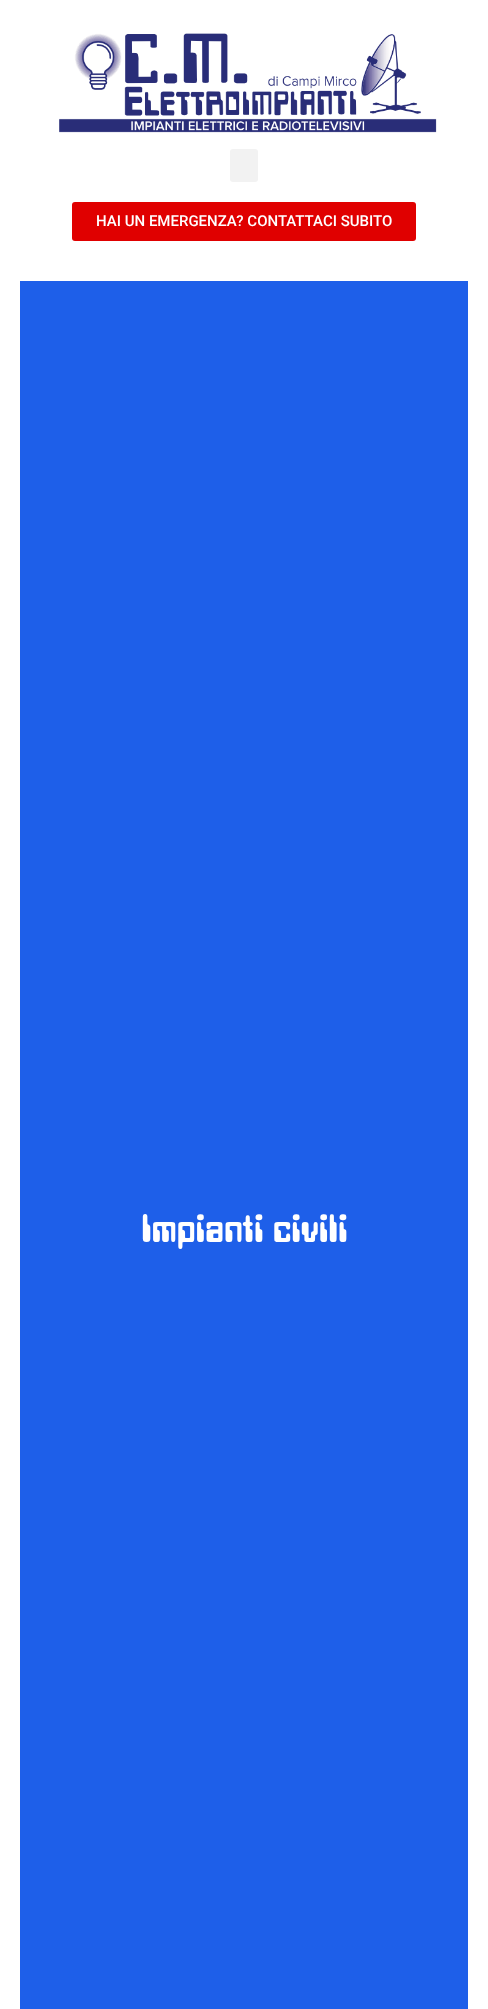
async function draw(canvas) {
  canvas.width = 488
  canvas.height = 2009
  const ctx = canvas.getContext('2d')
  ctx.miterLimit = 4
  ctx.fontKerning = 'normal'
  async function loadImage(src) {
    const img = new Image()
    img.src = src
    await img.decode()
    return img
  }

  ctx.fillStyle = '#fff'
  ctx.fillRect(0, 0, 488, 2009)
  ctx.drawImage(await loadImage('image0.png'), 59, 33, 378, 100)
  ctx.fillStyle = '#f2f2f2'
  ctx.beginPath()
  ctx.roundRect(230, 149, 28, 33, 3)
  ctx.fill()
  ctx.fillStyle = '#e00000'
  ctx.beginPath()
  ctx.roundRect(72, 202, 344, 39, 3)
  ctx.fill()
  ctx.font = '500 15px Roboto'
  ctx.fillStyle = '#fff'
  ctx.fillText('HAI UN EMERGENZA? CONTATTACI SUBITO', 96, 226)
  ctx.fillStyle = '#1e5fe9'
  ctx.fillRect(20, 281, 448, 1728)
  ctx.letterSpacing = '1px'
  ctx.font = 'bold 40px "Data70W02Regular"'
  ctx.fillStyle = '#fff'
  ctx.fillText('Impianti civili', 141, 1242)
}

draw(document.querySelector('canvas'))
